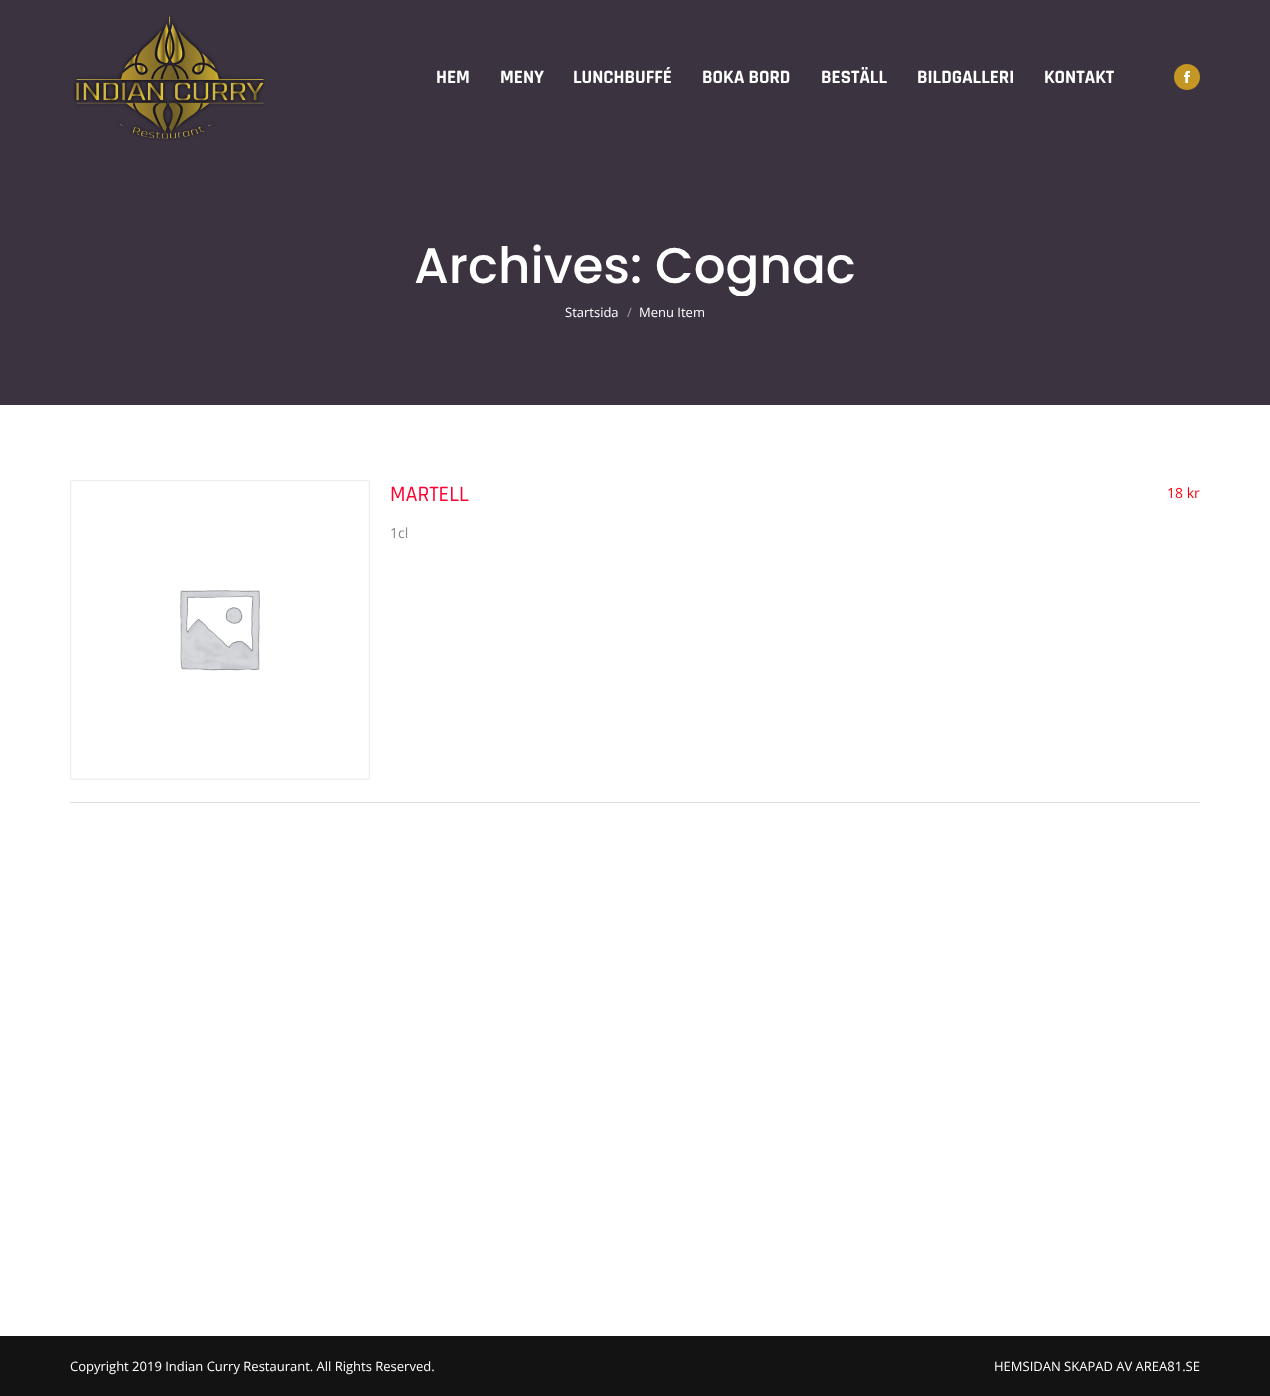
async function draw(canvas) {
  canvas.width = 1270
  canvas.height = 1396
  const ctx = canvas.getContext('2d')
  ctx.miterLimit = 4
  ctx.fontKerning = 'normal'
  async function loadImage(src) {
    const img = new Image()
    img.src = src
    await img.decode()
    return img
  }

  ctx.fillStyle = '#131313'
  ctx.fillRect(0, 0, 1270, 1396)
  ctx.fillStyle = '#3c3341'
  ctx.fillRect(0, 0, 1270, 405)
  ctx.drawImage(await loadImage('image0.png'), 73, 16, 192, 125)
  ctx.font = 'bold 19px Rajdhani'
  ctx.fillStyle = '#fff'
  ctx.fillText('HEM', 436, 83)
  ctx.fillText('MENY', 500, 83)
  ctx.fillText('LUNCHBUFFÉ', 573, 83)
  ctx.fillText('BOKA BORD', 702, 83)
  ctx.fillText('BESTÄLL', 821, 83)
  ctx.fillText('BILDGALLERI', 917, 83)
  ctx.fillText('KONTAKT', 1044, 83)
  ctx.fillStyle = '#c49623'
  ctx.beginPath()
  ctx.arc(1187, 77, 13, 0, 2 * Math.PI)
  ctx.fill()
  ctx.drawImage(await loadImage('image1.png'), 1184, 71, 6, 12)
  ctx.fillStyle = '#fff'
  ctx.fillRect(0, 405, 1270, 931)
  ctx.font = '500 50px Poppins'
  ctx.fillText('Archives:', 414, 283)
  ctx.save()
  ctx.beginPath()
  ctx.rect(414, 236, 442, 60)
  ctx.clip()
  ctx.fillText('Cognac', 655, 283)
  ctx.restore()
  ctx.font = '13px Open Sans'
  ctx.fillText('Startsida', 565, 317)
  ctx.fillStyle = '#9e99a0'
  ctx.fillText('/', 627, 317)
  ctx.fillStyle = '#fff'
  ctx.fillText('Menu Item', 639, 317)
  ctx.fillStyle = '#deded7'
  ctx.fillRect(70, 802, 1130, 1)
  ctx.drawImage(await loadImage('image2.png'), 70, 480, 300, 300)
  ctx.font = '500 22px Rajdhani'
  ctx.fillStyle = '#f03'
  ctx.fillText('MARTELL', 390, 501)
  ctx.font = '14px Open Sans'
  ctx.fillStyle = '#ff0009'
  ctx.fillText('18 kr', 1167, 498)
  ctx.fillStyle = '#8c8787'
  ctx.fillText('1cl', 390, 538)
  ctx.font = '13px Open Sans'
  ctx.fillStyle = '#fff'
  ctx.fillText('Copyright 2019 Indian Curry Restaurant. All Rights Reserved.', 70, 1371)
  ctx.fillText('HEMSIDAN SKAPAD AV AREA81.SE', 994, 1371)
}

draw(document.querySelector('canvas'))
